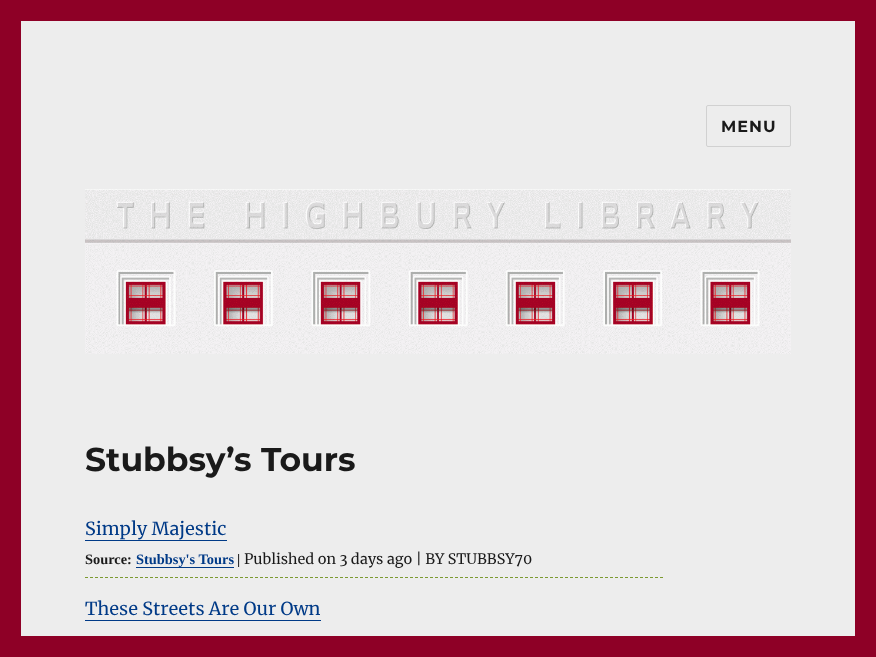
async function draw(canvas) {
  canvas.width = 876
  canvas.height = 657
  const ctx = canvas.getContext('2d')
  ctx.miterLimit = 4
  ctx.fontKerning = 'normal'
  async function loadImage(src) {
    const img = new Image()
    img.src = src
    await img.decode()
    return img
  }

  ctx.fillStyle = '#8e0026'
  ctx.fillRect(0, 0, 876, 657)
  ctx.fillStyle = '#ededed'
  ctx.fillRect(21, 21, 834, 615)
  ctx.beginPath()
  ctx.roundRect(706.5, 105.5, 84, 41, 1.5)
  ctx.strokeStyle = '#d1d1d1'
  ctx.stroke()
  ctx.letterSpacing = '1px'
  ctx.font = '100 16px Montserrat'
  ctx.fillStyle = '#1a1a1a'
  ctx.fillText('MENU', 721, 132)
  ctx.drawImage(await loadImage('image0.png'), 85, 189, 706, 165)
  ctx.letterSpacing = '0px'
  ctx.font = '100 33px Montserrat'
  ctx.fillText('Stubbsy’s Tours', 85, 471)
  ctx.beginPath()
  ctx.moveTo(85, 577.5)
  ctx.lineTo(663, 577.5)
  ctx.strokeStyle = '#7c9b30'
  ctx.setLineDash([3, 2])
  ctx.stroke()
  ctx.font = '18px Merriweather'
  ctx.fillStyle = '#003a87'
  ctx.fillText('Simply Majestic', 85, 535)
  ctx.fillRect(85, 540, 142, 1)
  ctx.font = 'bold 14.4px Liberation Serif'
  ctx.fillStyle = '#1a1a1a'
  ctx.fillText('Source:', 85, 564)
  ctx.fillStyle = '#003a87'
  ctx.fillRect(136, 567, 98, 1)
  ctx.fillText('Stubbsy\'s Tours', 136, 564)
  ctx.fillStyle = '#1a1a1a'
  ctx.fillText('|', 237, 564)
  ctx.font = '14.4px Merriweather'
  ctx.fillText('Published on 3 days ago | BY STUBBSY70', 244, 564)
  ctx.font = '18px Merriweather'
  ctx.fillStyle = '#003a87'
  ctx.fillText('These Streets Are Our Own', 85, 615)
  ctx.fillRect(85, 620, 236, 1)
}

draw(document.querySelector('canvas'))
